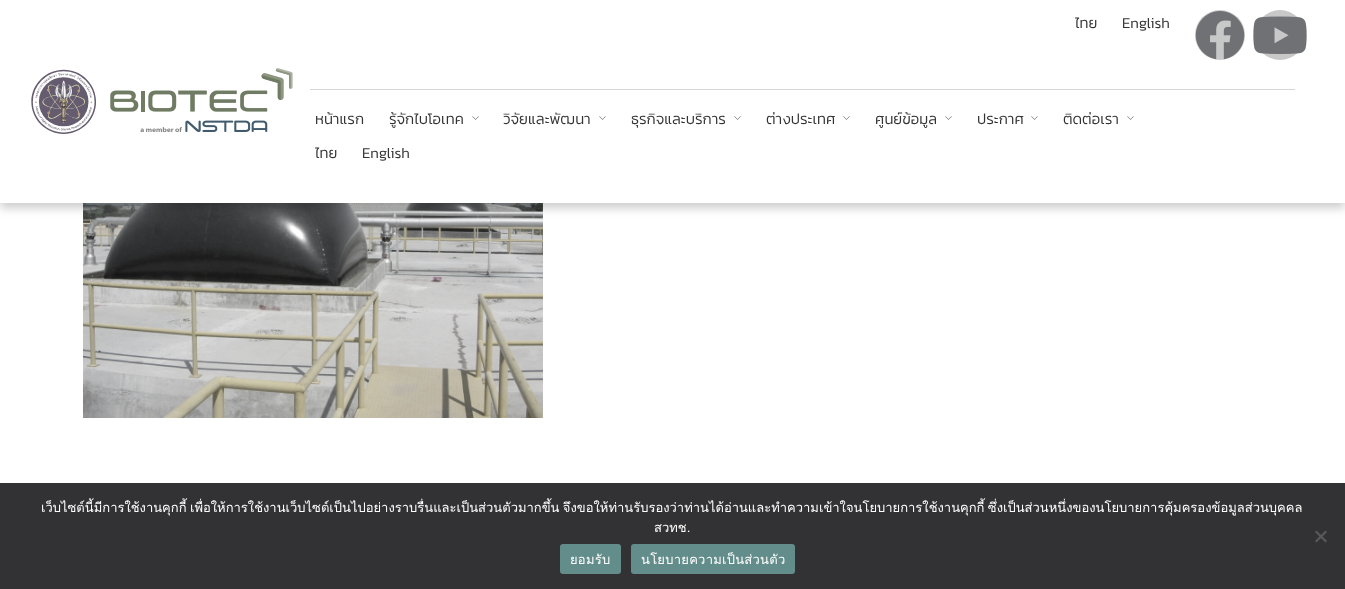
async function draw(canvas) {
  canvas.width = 1345
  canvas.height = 589
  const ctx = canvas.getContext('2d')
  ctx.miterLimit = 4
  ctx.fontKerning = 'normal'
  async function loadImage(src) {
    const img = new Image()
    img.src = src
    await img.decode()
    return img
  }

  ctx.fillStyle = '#fff'
  ctx.fillRect(0, 0, 1345, 589)
  ctx.drawImage(await loadImage('image5.png'), 83, 203, 460, 215)
  ctx.fillStyle = '#00000033'
  ctx.filter = 'blur(5px)'
  ctx.beginPath()
  ctx.rect(0, 5, 1345, 203)
  ctx.fill()
  ctx.filter = 'none'
  ctx.fillStyle = '#fff'
  ctx.fillRect(0, 0, 1345, 203)
  ctx.drawImage(await loadImage('image0.png'), 31, 69, 65, 65)
  ctx.drawImage(await loadImage('image1.png'), 110, 68, 183, 64)
  ctx.font = '300 15px Kanit'
  ctx.fillStyle = '#333'
  ctx.fillText('ไทย', 1075, 28)
  ctx.fillText('English', 1122, 28)
  ctx.fillStyle = '#c8c8c8'
  ctx.beginPath()
  ctx.arc(1220, 35, 25, 0, 2 * Math.PI)
  ctx.fill()
  ctx.drawImage(await loadImage('image2.png'), 1195, 11, 50, 49)
  ctx.beginPath()
  ctx.arc(1280, 35, 25, 0, 2 * Math.PI)
  ctx.fill()
  ctx.drawImage(await loadImage('image3.png'), 1253, 16, 54, 38)
  ctx.fillStyle = '#d6d6d6'
  ctx.fillRect(310, 89, 985, 1)
  ctx.fillStyle = '#333'
  ctx.fillText('หน้าแรก', 315, 124)
  ctx.fillText('รู้จักไบโอเทค', 389, 124)
  ctx.drawImage(await loadImage('image4.png'), 472, 116, 7, 4)
  ctx.fillText('วิจัยและพัฒนา', 503, 124)
  ctx.drawImage(await loadImage('image4.png'), 599, 116, 7, 4)
  ctx.fillText('ธุรกิจและบริการ', 631, 124)
  ctx.drawImage(await loadImage('image4.png'), 734, 116, 7, 4)
  ctx.fillText('ต่างประเทศ', 766, 124)
  ctx.drawImage(await loadImage('image4.png'), 843, 116, 7, 4)
  ctx.fillText('ศูนย์ข้อมูล', 875, 124)
  ctx.drawImage(await loadImage('image4.png'), 945, 116, 7, 4)
  ctx.fillText('ประกาศ', 977, 124)
  ctx.drawImage(await loadImage('image4.png'), 1031, 116, 7, 4)
  ctx.fillText('ติดต่อเรา', 1063, 124)
  ctx.drawImage(await loadImage('image4.png'), 1127, 116, 7, 4)
  ctx.fillText('ไทย', 315, 158)
  ctx.fillText('English', 362, 158)
  ctx.fillStyle = '#323234'
  ctx.fillRect(0, 483, 1345, 106)
  ctx.wordSpacing = '-1px'
  ctx.font = '13px Loma'
  ctx.fillStyle = '#fff'
  ctx.fillText('เว็บไซต์นี้มีการใช้งานคุกกี้ เพื่อให้การใช้งานเว็บไซต์เป็นไปอย่างราบรื่นและเป็นส่วนตัวมากขึ้น จึงขอให้ท่านรับรองว่าท่านได้อ่านและทำความเข้าใจนโยบายการใช้งานคุกกี้ ซึ่งเป็นส่วนหนึ่งของนโยบายการคุ้มครองข้อมูลส่วนบุคคล', 41, 512)
  ctx.wordSpacing = '0px'
  ctx.fillText('สวทช.', 654, 532)
  ctx.fillStyle = '#59595a'
  ctx.beginPath()
  ctx.moveTo(1325.5, 530.5)
  ctx.lineTo(1327, 532)
  ctx.lineTo(1316.5, 542.5)
  ctx.lineTo(1315, 541)
  ctx.closePath()
  ctx.fill()
  ctx.beginPath()
  ctx.moveTo(1315, 532)
  ctx.lineTo(1316.5, 530.5)
  ctx.lineTo(1327, 541)
  ctx.lineTo(1325.5, 542.5)
  ctx.closePath()
  ctx.fill()
  ctx.fillStyle = '#638d8a'
  ctx.beginPath()
  ctx.roundRect(560, 544, 61, 30, 3)
  ctx.fill()
  ctx.letterSpacing = '0.25px'
  ctx.fillStyle = '#fff'
  ctx.fillText('ยอมรับ', 570, 564)
  ctx.fillStyle = '#638d8a'
  ctx.beginPath()
  ctx.roundRect(631, 544, 164, 30, 3)
  ctx.fill()
  ctx.fillStyle = '#fff'
  ctx.fillText('นโยบายความเป็นส่วนตัว', 641, 564)
}

draw(document.querySelector('canvas'))
